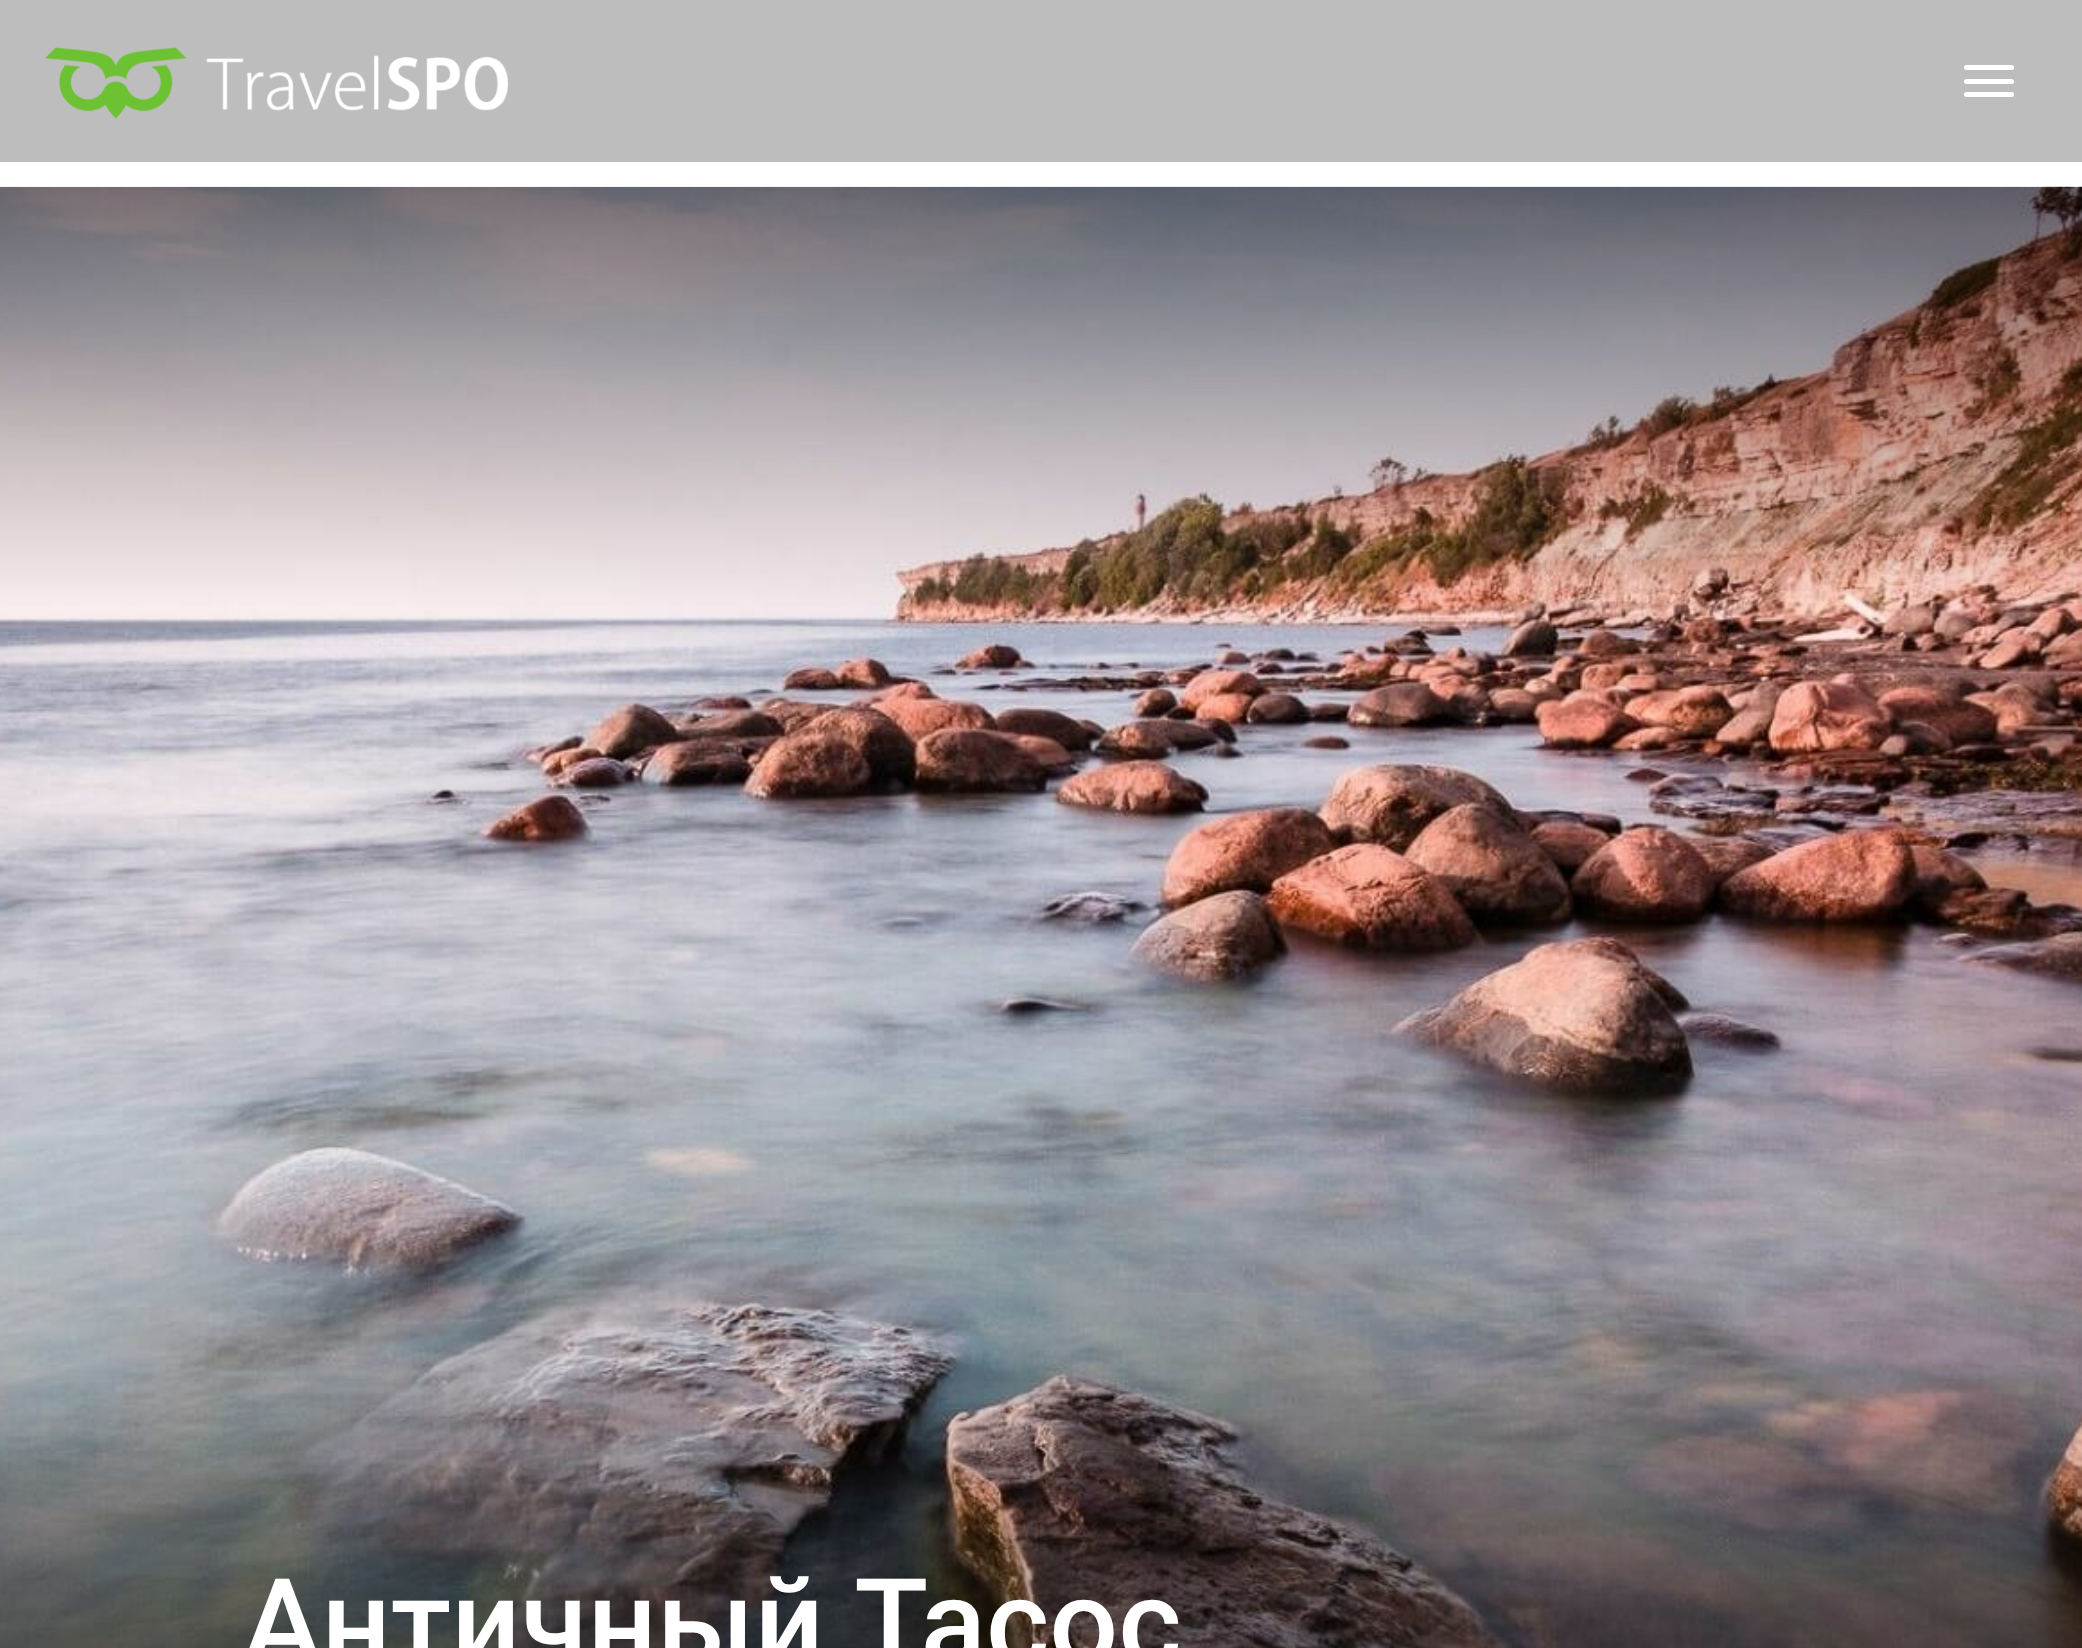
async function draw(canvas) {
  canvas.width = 2082
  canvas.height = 1648
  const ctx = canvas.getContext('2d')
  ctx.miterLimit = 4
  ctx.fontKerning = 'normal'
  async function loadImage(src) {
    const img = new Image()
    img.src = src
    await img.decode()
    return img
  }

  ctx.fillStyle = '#fff'
  ctx.fillRect(0, 0, 2082, 1648)
  ctx.fillStyle = '#bdbdbd'
  ctx.fillRect(0, 0, 2082, 162)
  ctx.drawImage(await loadImage('image0.png'), 45, 47, 464, 72)
  ctx.fillStyle = '#fff'
  ctx.beginPath()
  ctx.roundRect(1964, 65, 50, 5, 2.5)
  ctx.fill()
  ctx.beginPath()
  ctx.roundRect(1964, 79, 50, 5, 2.5)
  ctx.fill()
  ctx.beginPath()
  ctx.roundRect(1964, 92, 50, 5, 2.5)
  ctx.fill()
  ctx.drawImage(await loadImage('image1.png'), 0, 186, 2082, 1462)
  ctx.wordSpacing = '3px'
  ctx.font = '500 121.5px Roboto'
  ctx.fillText('Античный Тасос', 242, 1665)
}

draw(document.querySelector('canvas'))
